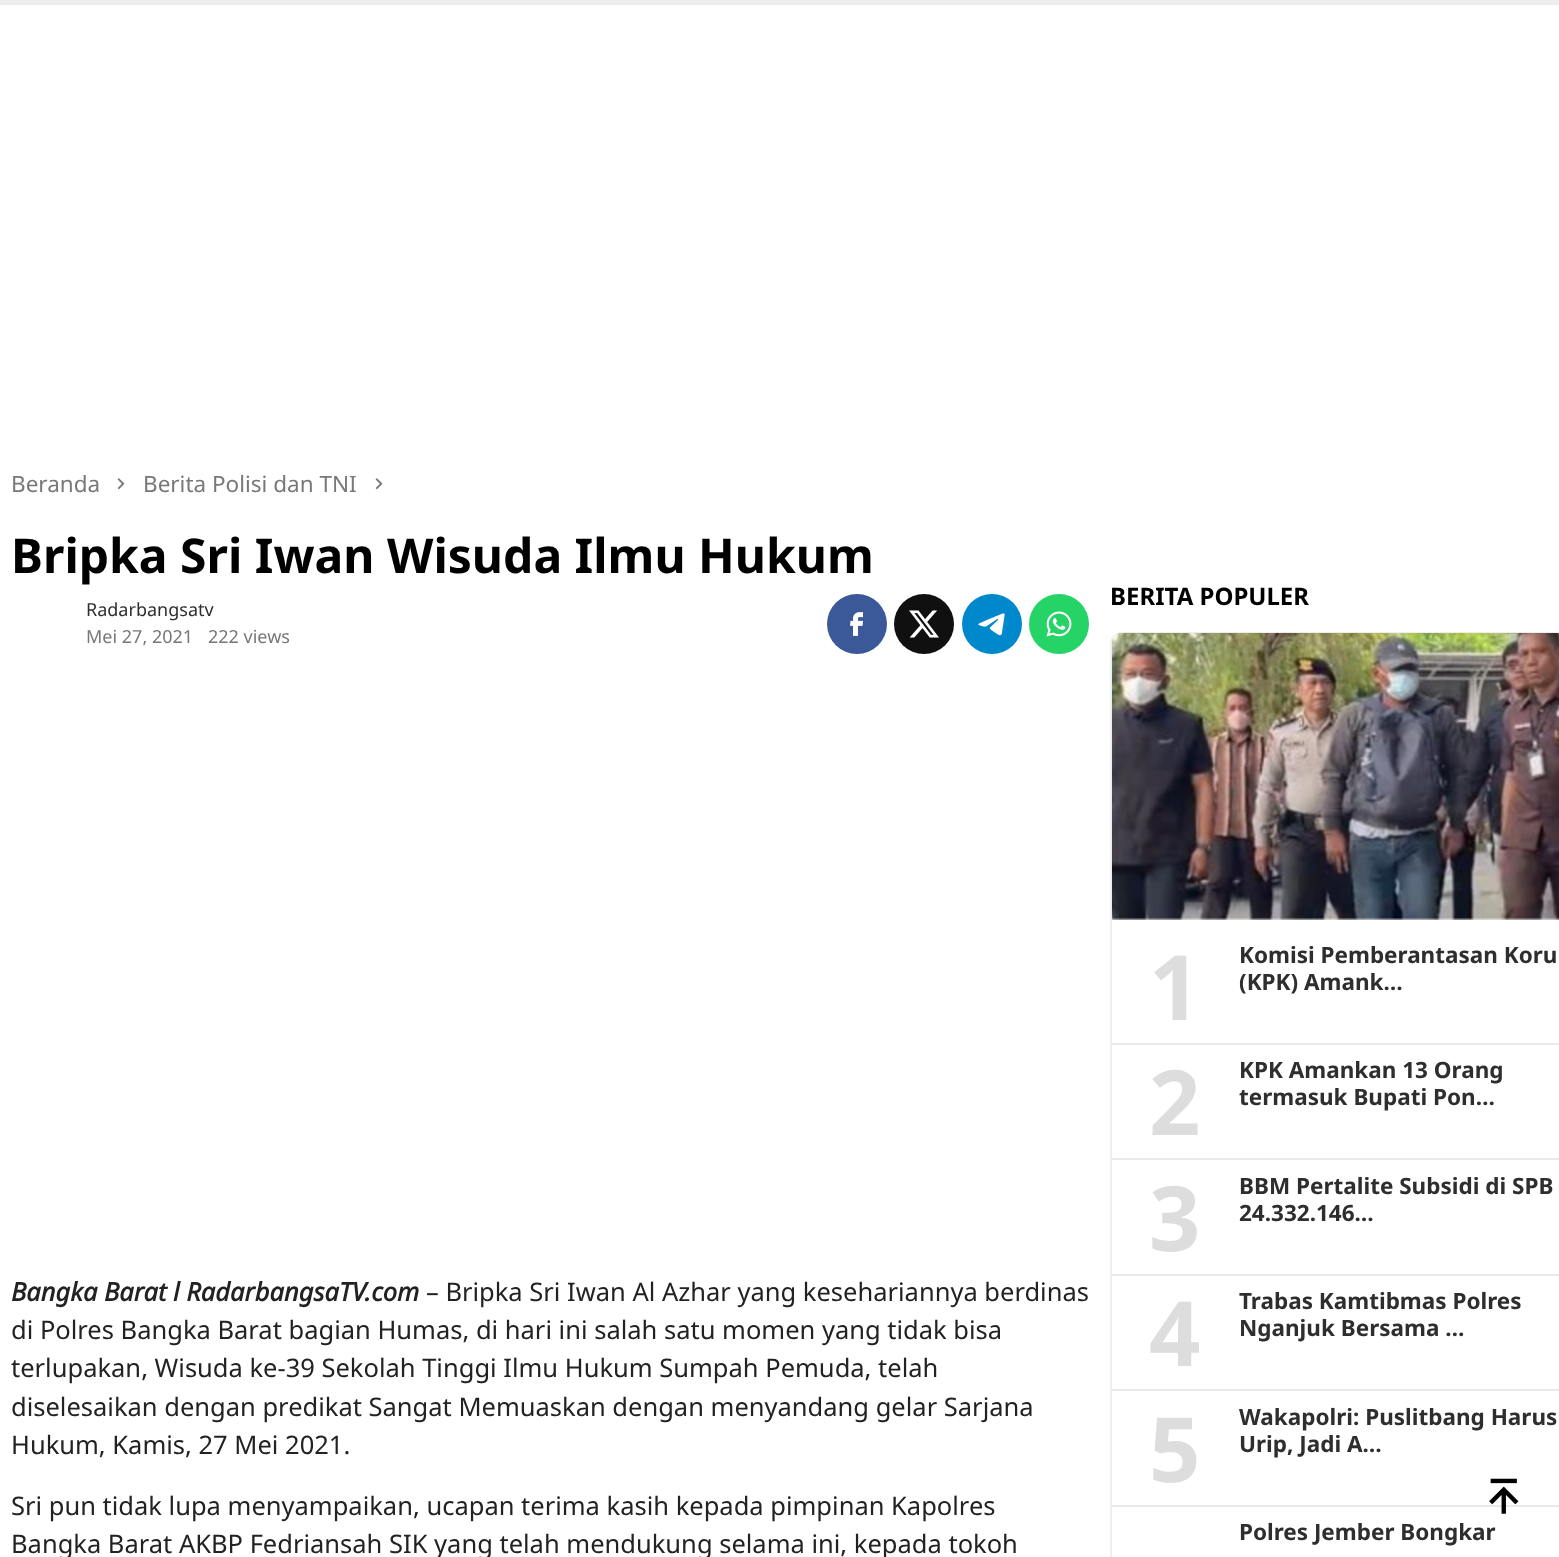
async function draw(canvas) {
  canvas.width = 1559
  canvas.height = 1557
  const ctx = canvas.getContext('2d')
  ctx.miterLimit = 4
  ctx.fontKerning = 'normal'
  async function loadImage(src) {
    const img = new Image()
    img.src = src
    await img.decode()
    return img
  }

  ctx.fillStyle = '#eee'
  ctx.fillRect(0, 0, 1559, 1557)
  ctx.fillStyle = '#fff'
  ctx.fillRect(0, 5, 1559, 1552)
  ctx.font = '22.5px Noto Sans'
  ctx.fillStyle = '#787878'
  ctx.fillText('Beranda', 11, 492)
  ctx.drawImage(await loadImage('image0.png'), 117, 478, 8, 12)
  ctx.fillText('Berita Polisi dan TNI', 143, 492)
  ctx.drawImage(await loadImage('image0.png'), 375, 478, 8, 12)
  ctx.font = 'bold 48px Noto Sans'
  ctx.fillStyle = '#000'
  ctx.fillText('Bripka Sri Iwan Wisuda Ilmu Hukum', 11, 573)
  ctx.font = '18px Noto Sans'
  ctx.fillStyle = '#2e2e2e'
  ctx.fillText('Radarbangsatv', 86, 616)
  ctx.fillStyle = '#787878'
  ctx.fillText('Mei 27, 2021', 86, 643)
  ctx.fillText('222 views', 208, 643)
  ctx.fillStyle = '#3b5998'
  ctx.beginPath()
  ctx.arc(857, 624, 30, 0, 2 * Math.PI)
  ctx.fill()
  ctx.drawImage(await loadImage('image1.png'), 850, 612, 13, 24)
  ctx.fillStyle = '#101010'
  ctx.beginPath()
  ctx.arc(924, 624, 30, 0, 2 * Math.PI)
  ctx.fill()
  ctx.drawImage(await loadImage('image2.png'), 909, 610, 30, 28)
  ctx.fillStyle = '#08c'
  ctx.beginPath()
  ctx.arc(992, 624, 30, 0, 2 * Math.PI)
  ctx.fill()
  ctx.drawImage(await loadImage('image3.png'), 978, 613, 27, 23)
  ctx.fillStyle = '#25d366'
  ctx.beginPath()
  ctx.arc(1059, 624, 30, 0, 2 * Math.PI)
  ctx.fill()
  ctx.drawImage(await loadImage('image4.png'), 1046, 611, 26, 26)
  ctx.font = 'italic bold 25.5px Noto Sans'
  ctx.fillStyle = '#222'
  ctx.fillText('Bangka Barat l RadarbangsaTV.com', 11, 1301)
  ctx.font = '25.5px Noto Sans'
  ctx.fillText('– Bripka Sri Iwan Al Azhar yang kesehariannya berdinas', 426, 1301)
  ctx.fillText('di Polres Bangka Barat bagian Humas, di hari ini salah satu momen yang tidak bisa', 11, 1339)
  ctx.fillText('terlupakan, Wisuda ke-39 Sekolah Tinggi Ilmu Hukum Sumpah Pemuda, telah', 11, 1377)
  ctx.fillText('diselesaikan dengan predikat Sangat Memuaskan dengan menyandang gelar Sarjana', 11, 1416)
  ctx.fillText('Hukum, Kamis, 27 Mei 2021.', 11, 1454)
  ctx.fillText('Sri pun tidak lupa menyampaikan, ucapan terima kasih kepada pimpinan Kapolres', 11, 1515)
  ctx.fillText('Bangka Barat AKBP Fedriansah SIK yang telah mendukung selama ini, kepada tokoh', 11, 1553)
  ctx.font = 'bold 24px Noto Sans'
  ctx.fillStyle = '#000'
  ctx.fillText('BERITA POPULER', 1110, 605)
  ctx.beginPath()
  ctx.roundRect(1111, 633, 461, 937, 11)
  ctx.strokeStyle = '#eee'
  ctx.lineWidth = 2
  ctx.stroke()
  ctx.fillStyle = '#e9e9e9'
  ctx.fillRect(1112, 1043, 447, 2)
  ctx.drawImage(await loadImage('image5.png'), 1112, 633, 447, 287)
  ctx.letterSpacing = '-6px'
  ctx.font = 'bold 90px Noto Sans'
  ctx.fillStyle = '#ddd'
  ctx.fillText('1', 1149, 1020)
  ctx.letterSpacing = '0px'
  ctx.font = 'bold 22.5px Noto Sans'
  ctx.fillStyle = '#2e2e2e'
  ctx.fillText('Komisi Pemberantasan Koru', 1239, 963)
  ctx.fillText('(KPK) Amank…', 1239, 990)
  ctx.fillStyle = '#e9e9e9'
  ctx.fillRect(1112, 1158, 447, 2)
  ctx.letterSpacing = '-6px'
  ctx.font = 'bold 90px Noto Sans'
  ctx.fillStyle = '#ddd'
  ctx.fillText('2', 1149, 1135)
  ctx.letterSpacing = '0px'
  ctx.font = 'bold 22.5px Noto Sans'
  ctx.fillStyle = '#2e2e2e'
  ctx.fillText('KPK Amankan 13 Orang', 1239, 1078)
  ctx.fillText('termasuk Bupati Pon…', 1239, 1105)
  ctx.fillStyle = '#e9e9e9'
  ctx.fillRect(1112, 1274, 447, 2)
  ctx.letterSpacing = '-6px'
  ctx.font = 'bold 90px Noto Sans'
  ctx.fillStyle = '#ddd'
  ctx.fillText('3', 1149, 1251)
  ctx.letterSpacing = '0px'
  ctx.font = 'bold 22.5px Noto Sans'
  ctx.fillStyle = '#2e2e2e'
  ctx.fillText('BBM Pertalite Subsidi di SPB', 1239, 1194)
  ctx.fillText('24.332.146…', 1239, 1221)
  ctx.fillStyle = '#e9e9e9'
  ctx.fillRect(1112, 1389, 447, 2)
  ctx.letterSpacing = '-6px'
  ctx.font = 'bold 90px Noto Sans'
  ctx.fillStyle = '#ddd'
  ctx.fillText('4', 1149, 1366)
  ctx.letterSpacing = '0px'
  ctx.font = 'bold 22.5px Noto Sans'
  ctx.fillStyle = '#2e2e2e'
  ctx.fillText('Trabas Kamtibmas Polres', 1239, 1309)
  ctx.fillText('Nganjuk Bersama …', 1239, 1336)
  ctx.fillStyle = '#e9e9e9'
  ctx.fillRect(1112, 1505, 447, 2)
  ctx.letterSpacing = '-6px'
  ctx.font = 'bold 90px Noto Sans'
  ctx.fillStyle = '#ddd'
  ctx.fillText('5', 1149, 1482)
  ctx.letterSpacing = '0px'
  ctx.font = 'bold 22.5px Noto Sans'
  ctx.fillStyle = '#2e2e2e'
  ctx.fillText('Wakapolri: Puslitbang Harus', 1239, 1425)
  ctx.fillText('Urip, Jadi A…', 1239, 1452)
  ctx.fillText('Polres Jember Bongkar', 1239, 1540)
  ctx.drawImage(await loadImage('image6.png'), 1489, 1478, 30, 36)
}

draw(document.querySelector('canvas'))
